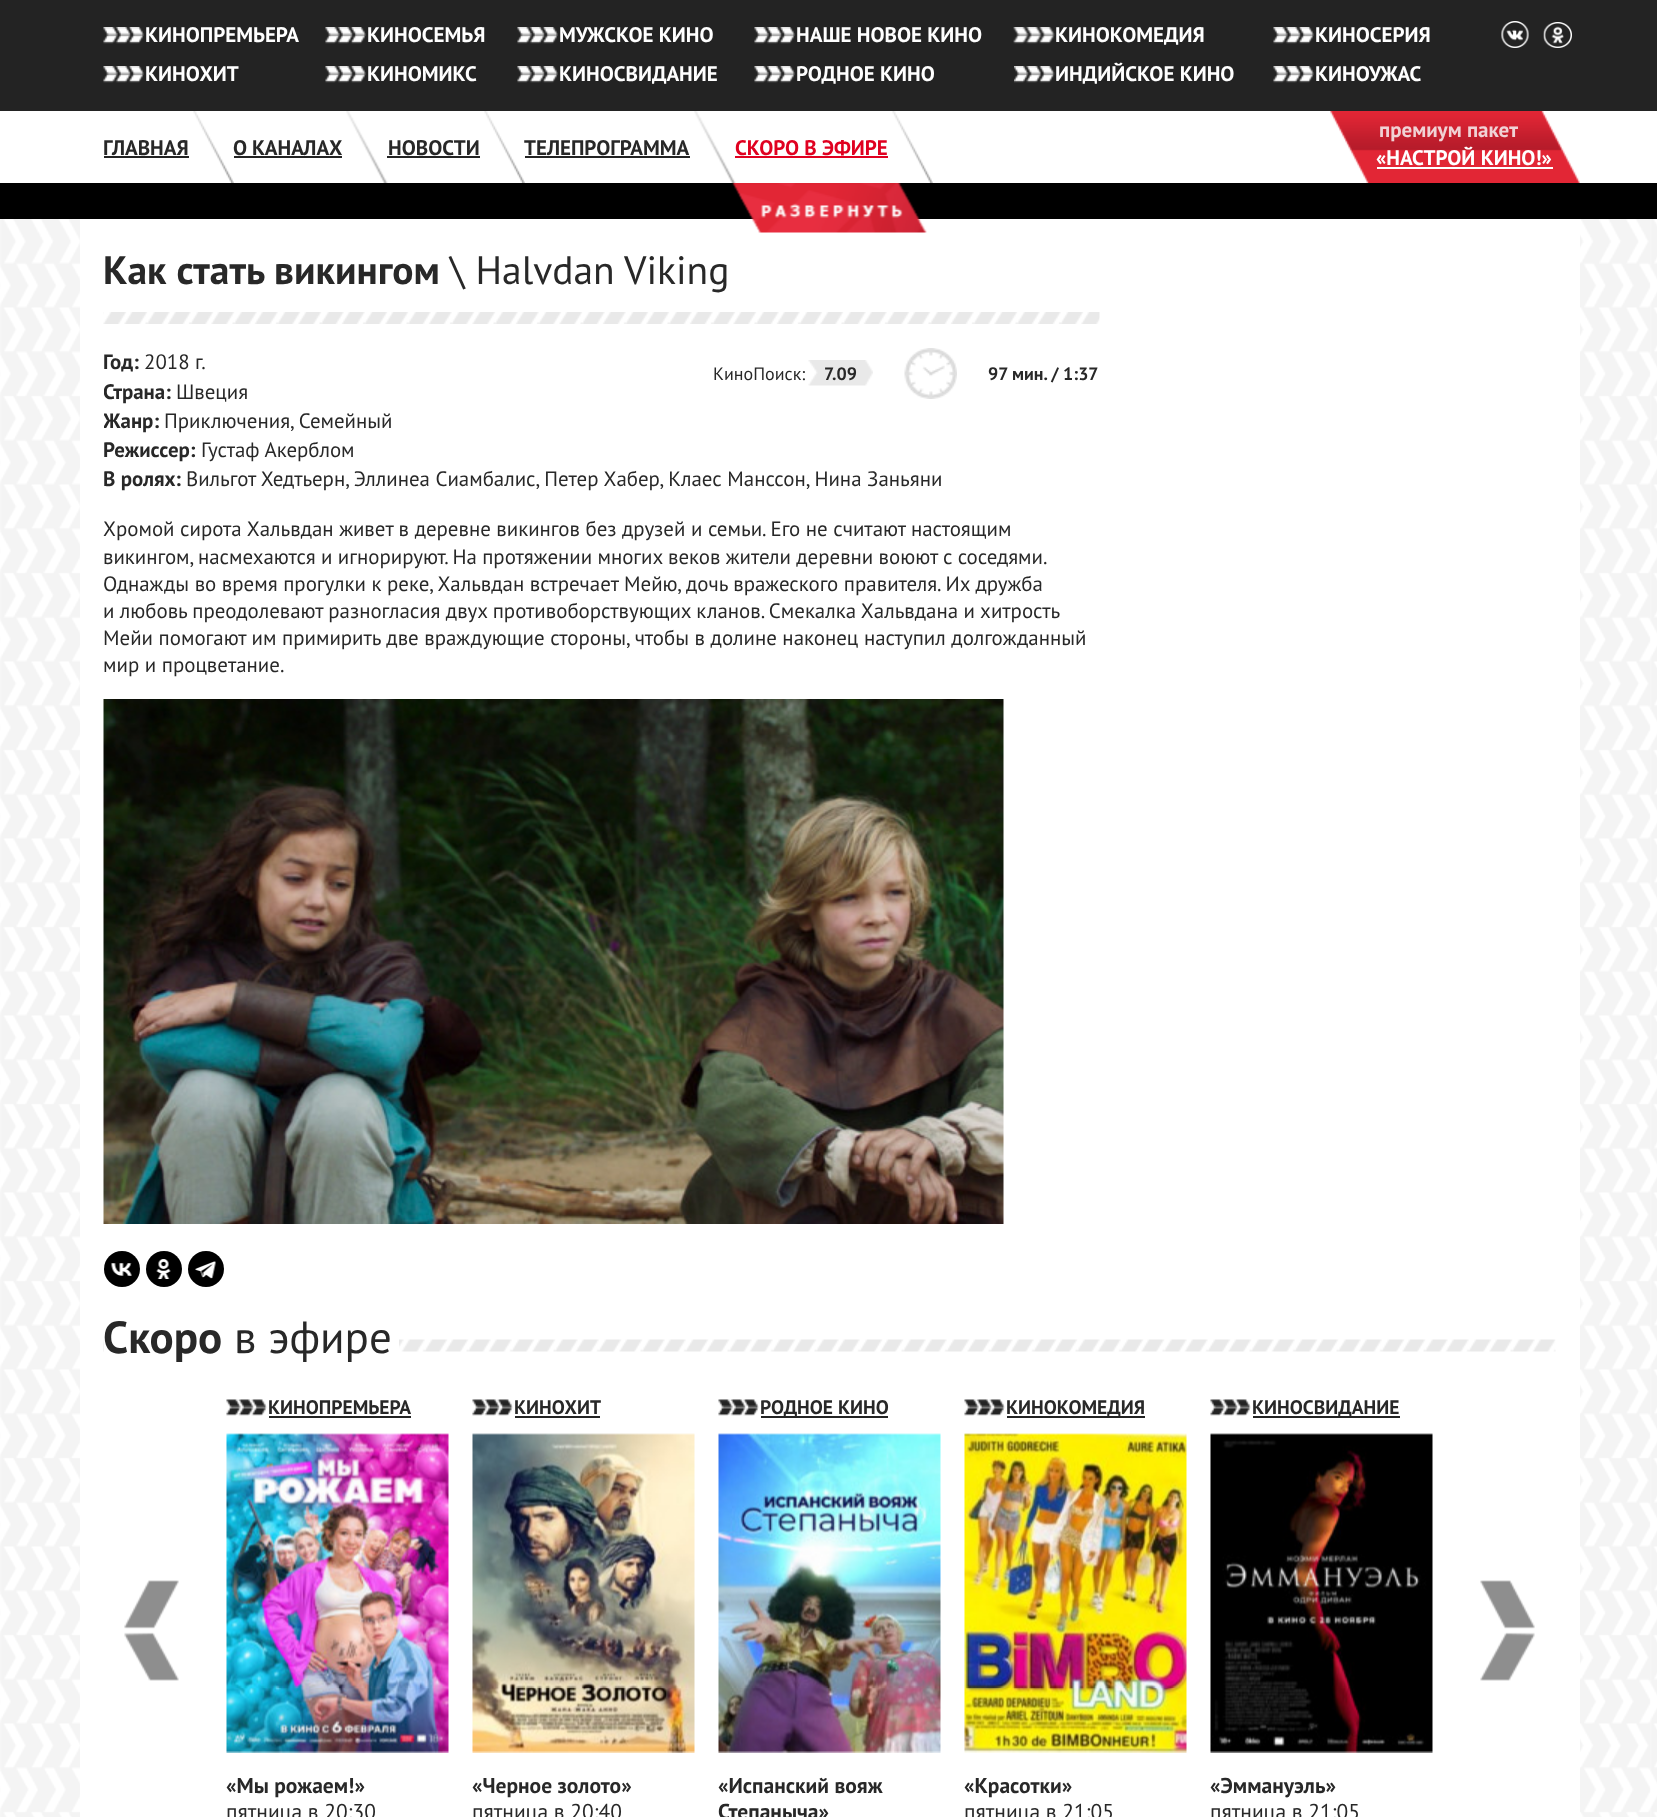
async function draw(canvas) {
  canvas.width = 1657
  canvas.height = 1817
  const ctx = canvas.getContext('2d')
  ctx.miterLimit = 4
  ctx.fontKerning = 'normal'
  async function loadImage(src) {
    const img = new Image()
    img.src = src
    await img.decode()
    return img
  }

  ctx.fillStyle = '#232323'
  ctx.fillRect(0, 0, 1657, 1817)
  ctx.drawImage(await loadImage('image0.png'), 103, 27, 41, 17)
  ctx.font = 'bold 21px PT Sans'
  ctx.fillStyle = '#fff'
  ctx.fillText('КИНОПРЕМЬЕРА', 145, 42)
  ctx.drawImage(await loadImage('image0.png'), 325, 27, 41, 17)
  ctx.fillText('КИНОСЕМЬЯ', 367, 42)
  ctx.drawImage(await loadImage('image0.png'), 517, 27, 41, 17)
  ctx.fillText('МУЖСКОЕ КИНО', 559, 42)
  ctx.drawImage(await loadImage('image0.png'), 754, 27, 41, 17)
  ctx.fillText('НАШЕ НОВОЕ КИНО', 796, 42)
  ctx.drawImage(await loadImage('image1.png'), 1013, 27, 42, 17)
  ctx.fillText('КИНОКОМЕДИЯ', 1055, 42)
  ctx.drawImage(await loadImage('image0.png'), 1273, 27, 41, 17)
  ctx.fillText('КИНОСЕРИЯ', 1315, 42)
  ctx.drawImage(await loadImage('image0.png'), 103, 66, 41, 17)
  ctx.fillText('КИНОХИТ', 145, 81)
  ctx.drawImage(await loadImage('image0.png'), 325, 66, 41, 17)
  ctx.fillText('КИНОМИКС', 367, 81)
  ctx.drawImage(await loadImage('image0.png'), 517, 66, 41, 17)
  ctx.fillText('КИНОСВИДАНИЕ', 559, 81)
  ctx.drawImage(await loadImage('image0.png'), 754, 66, 41, 17)
  ctx.fillText('РОДНОЕ КИНО', 796, 81)
  ctx.drawImage(await loadImage('image2.png'), 1014, 66, 41, 17)
  ctx.fillText('ИНДИЙСКОЕ КИНО', 1055, 81)
  ctx.drawImage(await loadImage('image0.png'), 1273, 66, 41, 17)
  ctx.fillText('КИНОУЖАС', 1315, 81)
  ctx.fillRect(0, 111, 1657, 72)
  ctx.drawImage(await loadImage('image3.png'), 1501, 21, 28, 27)
  ctx.drawImage(await loadImage('image4.png'), 1543, 22, 29, 26)
  ctx.drawImage(await loadImage('image5.png'), 193, 111, 41, 72)
  ctx.fillStyle = '#282828'
  ctx.fillText('ГЛАВНАЯ', 103, 155)
  ctx.fillStyle = '#232323'
  ctx.fillRect(104, 156, 85, 2)
  ctx.drawImage(await loadImage('image6.png'), 346, 111, 42, 72)
  ctx.fillStyle = '#282828'
  ctx.fillText('О КАНАЛАХ', 233, 155)
  ctx.fillStyle = '#232323'
  ctx.fillRect(234, 156, 108, 2)
  ctx.drawImage(await loadImage('image5.png'), 484, 111, 41, 72)
  ctx.fillStyle = '#282828'
  ctx.fillText('НОВОСТИ', 388, 155)
  ctx.fillStyle = '#232323'
  ctx.fillRect(387, 156, 93, 2)
  ctx.drawImage(await loadImage('image6.png'), 694, 111, 42, 72)
  ctx.fillStyle = '#282828'
  ctx.fillText('ТЕЛЕПРОГРАММА', 524, 155)
  ctx.fillStyle = '#232323'
  ctx.fillRect(525, 156, 165, 2)
  ctx.drawImage(await loadImage('image5.png'), 892, 111, 41, 72)
  ctx.fillStyle = '#e00020'
  ctx.fillText('СКОРО В ЭФИРЕ', 735, 155)
  ctx.fillRect(735, 156, 153, 2)
  ctx.drawImage(await loadImage('image7.png'), 1330, 111, 250, 72)
  ctx.fillStyle = '#f0d2d5'
  ctx.fillText('премиум пакет', 1379, 137)
  ctx.fillStyle = '#fff'
  ctx.fillText('«НАСТРОЙ КИНО!»', 1376, 165)
  ctx.fillRect(1377, 167, 176, 2)
  ctx.fillStyle = '#000'
  ctx.fillRect(0, 183, 1657, 36)
  ctx.fillStyle = '#fff'
  ctx.fillRect(0, 219, 1657, 1598)
  ctx.drawImage(await loadImage('image9.png'), 0, 219, 1657, 1598)
  ctx.fillRect(80, 219, 1500, 1598)
  ctx.drawImage(await loadImage('image8.png'), 731, 183, 196, 50)
  ctx.font = 'bold 39.5px PT Sans'
  ctx.fillStyle = '#282828'
  ctx.fillText('Как стать викингом', 103, 284)
  ctx.font = '39.5px PT Sans'
  ctx.fillText('\\ Halvdan Viking', 450, 284)
  ctx.drawImage(await loadImage('image10.png'), 103, 312, 997, 12)
  ctx.font = 'bold 20.9px PT Sans'
  ctx.fillText('Год:', 103, 369)
  ctx.font = '20.9px PT Sans'
  ctx.fillText('2018 г.', 144, 369)
  ctx.save()
  ctx.beginPath()
  ctx.rect(104, 243, 996, 1044)
  ctx.clip()
  ctx.font = 'bold 20.9px PT Sans'
  ctx.fillText('Страна:', 103, 399)
  ctx.restore()
  ctx.fillText('Швеция', 176, 399)
  ctx.save()
  ctx.beginPath()
  ctx.rect(104, 243, 996, 1044)
  ctx.clip()
  ctx.font = 'bold 20.9px PT Sans'
  ctx.fillText('Жанр:', 103, 428)
  ctx.restore()
  ctx.fillText('Приключения, Семейный', 164, 428)
  ctx.font = 'bold 20.9px PT Sans'
  ctx.fillText('Режиссер:', 103, 457)
  ctx.font = '20.9px PT Sans'
  ctx.fillText('Густаф Акерблом', 201, 457)
  ctx.font = 'bold 20.9px PT Sans'
  ctx.fillText('В ролях:', 103, 486)
  ctx.font = '20.9px PT Sans'
  ctx.fillText('Вильгот Хедтьерн, Эллинеа Сиамбалис, Петер Хабер, Клаес Манссон, Нина Заньяни', 186, 486)
  ctx.fillText('Хромой сирота Хальвдан живет в деревне викингов без друзей и семьи. Его не считают настоящим', 103, 536)
  ctx.wordSpacing = '-0.25px'
  ctx.fillText('викингом, насмехаются и игнорируют. На протяжении многих веков жители деревни воюют с соседями.', 103, 564)
  ctx.wordSpacing = '0px'
  ctx.fillText('Однажды во время прогулки к реке, Хальвдан встречает Мейю, дочь вражеского правителя. Их дружба', 103, 591)
  ctx.wordSpacing = '-0.25px'
  ctx.fillText('и любовь преодолевают разногласия двух противоборствующих кланов. Смекалка Хальвдана и хитрость', 103, 618)
  ctx.wordSpacing = '0px'
  ctx.fillText('Мейи помогают им примирить две враждующие стороны, чтобы в долине наконец наступил долгожданный', 103, 645)
  ctx.fillText('мир и процветание.', 103, 672)
  ctx.drawImage(await loadImage('image11.png'), 103, 699, 901, 525)
  ctx.fillStyle = '#000'
  ctx.beginPath()
  ctx.arc(122, 1269, 18, 0, 2 * Math.PI)
  ctx.fill()
  ctx.drawImage(await loadImage('image12.png'), 111, 1263, 21, 13)
  ctx.beginPath()
  ctx.arc(164, 1269, 18, 0, 2 * Math.PI)
  ctx.fill()
  ctx.drawImage(await loadImage('image13.png'), 156, 1259, 15, 20)
  ctx.beginPath()
  ctx.arc(206, 1269, 18, 0, 2 * Math.PI)
  ctx.fill()
  ctx.drawImage(await loadImage('image14.png'), 195, 1261, 21, 18)
  ctx.font = '18px PT Sans'
  ctx.fillStyle = '#282828'
  ctx.fillText('КиноПоиск:', 713, 380)
  ctx.drawImage(await loadImage('image15.png'), 808, 360, 65, 26)
  ctx.font = 'bold 18px PT Sans'
  ctx.fillText('7.09', 824, 380)
  ctx.drawImage(await loadImage('image16.png'), 904, 348, 53, 51)
  ctx.fillText('97 мин. / 1:37', 988, 380)
  ctx.drawImage(await loadImage('image17.png'), 103, 1339, 1453, 13)
  ctx.fillStyle = '#fff'
  ctx.fillRect(104, 1339, 295, 13)
  ctx.font = 'bold 45px PT Sans'
  ctx.fillStyle = '#282828'
  ctx.fillText('Скоро', 103, 1353)
  ctx.font = '45px PT Sans'
  ctx.fillText('в эфире', 234, 1353)
  ctx.drawImage(await loadImage('image18.png'), 124, 1580, 55, 101)
  ctx.drawImage(await loadImage('image19.png'), 226, 1399, 41, 17)
  ctx.font = 'bold 19.5px PT Sans'
  ctx.fillText('КИНОПРЕМЬЕРА', 268, 1414)
  ctx.fillStyle = '#232323'
  ctx.fillRect(269, 1416, 142, 2)
  ctx.drawImage(await loadImage('image20.png'), 226, 1433, 223, 320)
  ctx.font = 'bold 21.5px PT Sans'
  ctx.fillStyle = '#282828'
  ctx.fillText('«Мы рожаем!»', 226, 1793)
  ctx.font = '21.5px PT Sans'
  ctx.fillText('пятница в 20:30', 226, 1819)
  ctx.drawImage(await loadImage('image19.png'), 472, 1399, 41, 17)
  ctx.font = 'bold 19.5px PT Sans'
  ctx.fillText('КИНОХИТ', 514, 1414)
  ctx.fillStyle = '#232323'
  ctx.fillRect(515, 1416, 85, 2)
  ctx.drawImage(await loadImage('image21.png'), 472, 1433, 223, 320)
  ctx.font = 'bold 21.5px PT Sans'
  ctx.fillStyle = '#282828'
  ctx.fillText('«Черное золото»', 472, 1793)
  ctx.font = '21.5px PT Sans'
  ctx.fillText('пятница в 20:40', 472, 1819)
  ctx.drawImage(await loadImage('image19.png'), 718, 1399, 41, 17)
  ctx.fillStyle = '#232323'
  ctx.fillRect(761, 1416, 127, 2)
  ctx.font = 'bold 19.5px PT Sans'
  ctx.fillStyle = '#282828'
  ctx.fillText('РОДНОЕ КИНО', 760, 1414)
  ctx.drawImage(await loadImage('image22.png'), 718, 1433, 223, 320)
  ctx.font = 'bold 21.5px PT Sans'
  ctx.fillText('«Испанский вояж', 718, 1793)
  ctx.fillText('Степаныча»', 718, 1819)
  ctx.drawImage(await loadImage('image19.png'), 964, 1399, 41, 17)
  ctx.fillStyle = '#232323'
  ctx.fillRect(1007, 1416, 138, 2)
  ctx.font = 'bold 19.5px PT Sans'
  ctx.fillStyle = '#282828'
  ctx.fillText('КИНОКОМЕДИЯ', 1006, 1414)
  ctx.drawImage(await loadImage('image23.png'), 964, 1433, 223, 320)
  ctx.font = 'bold 21.5px PT Sans'
  ctx.fillText('«Красотки»', 964, 1793)
  ctx.font = '21.5px PT Sans'
  ctx.fillText('пятница в 21:05', 964, 1819)
  ctx.drawImage(await loadImage('image19.png'), 1210, 1399, 41, 17)
  ctx.fillStyle = '#232323'
  ctx.fillRect(1253, 1416, 147, 2)
  ctx.font = 'bold 19.5px PT Sans'
  ctx.fillStyle = '#282828'
  ctx.fillText('КИНОСВИДАНИЕ', 1252, 1414)
  ctx.drawImage(await loadImage('image24.png'), 1210, 1433, 223, 320)
  ctx.font = 'bold 21.5px PT Sans'
  ctx.fillText('«Эммануэль»', 1210, 1793)
  ctx.font = '21.5px PT Sans'
  ctx.fillText('пятница в 21:05', 1210, 1819)
  ctx.drawImage(await loadImage('image25.png'), 1480, 1580, 55, 101)
}

draw(document.querySelector('canvas'))
